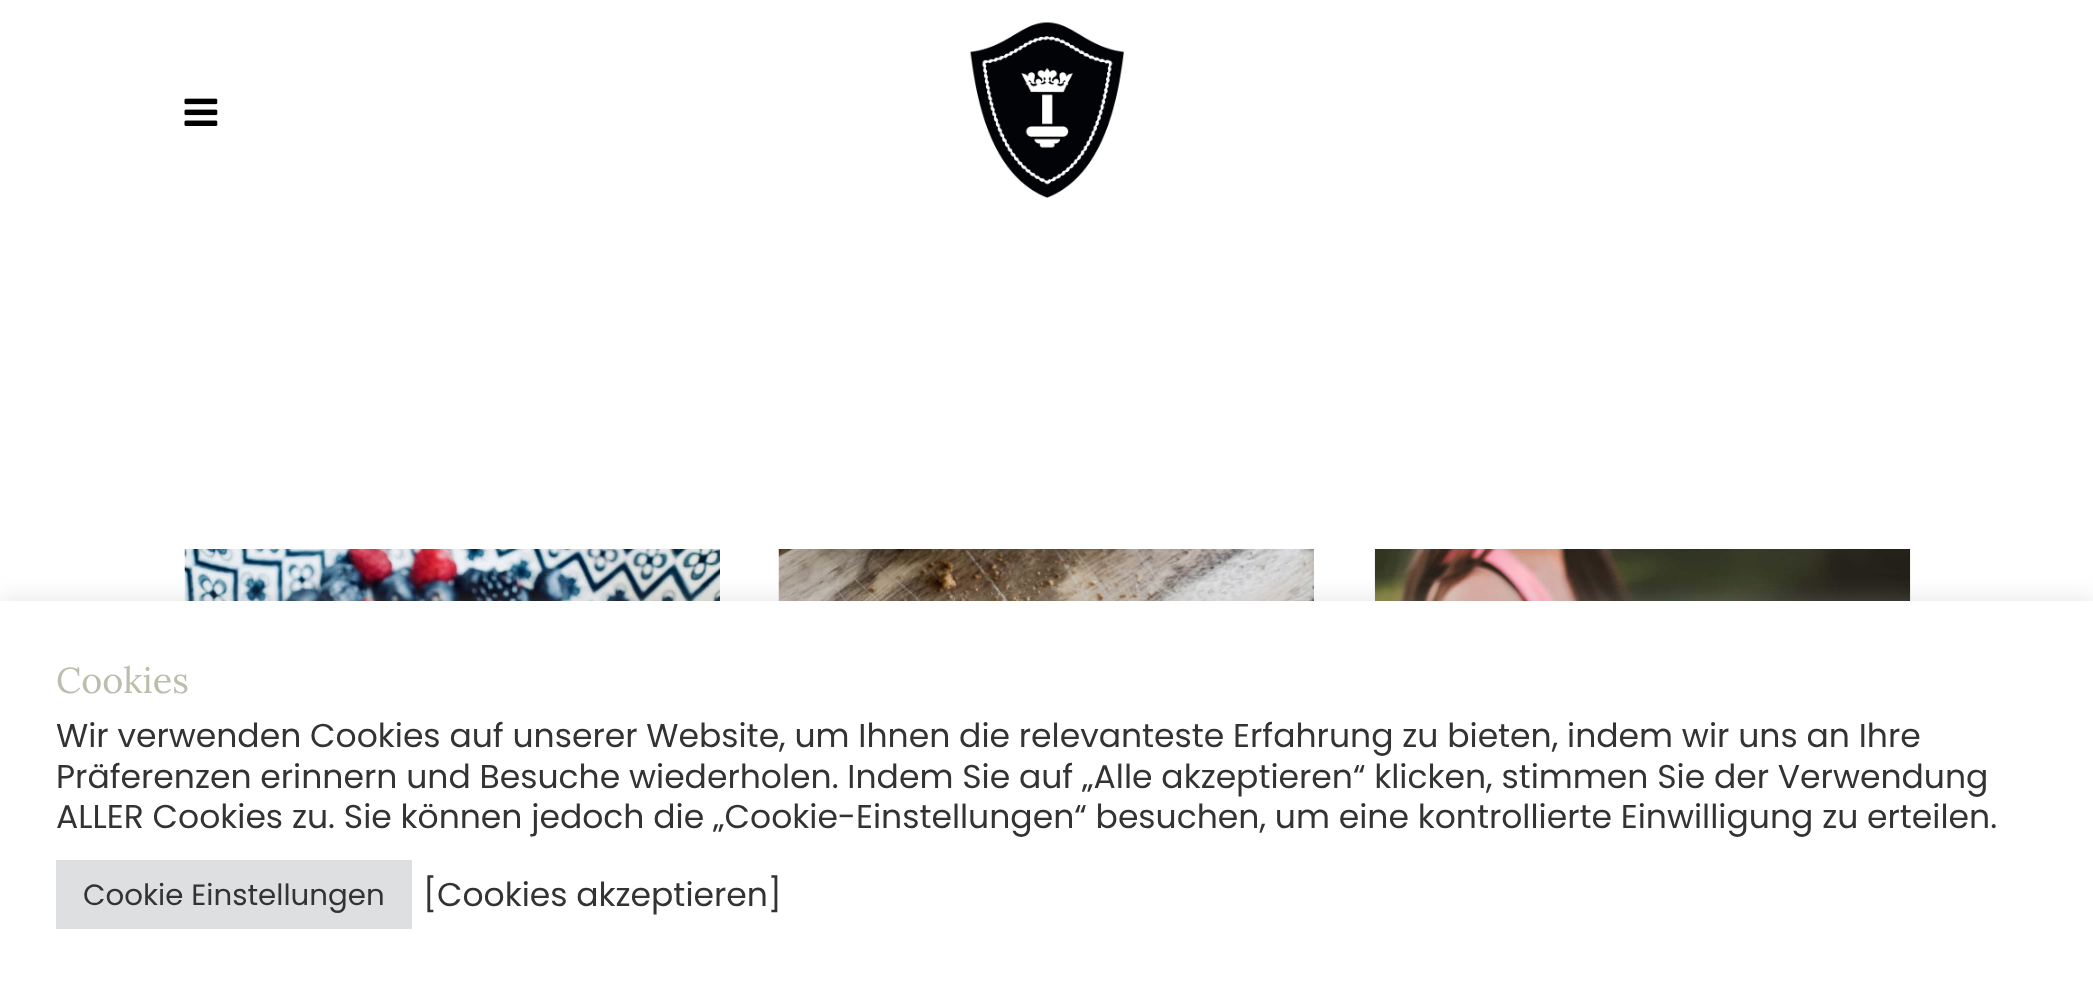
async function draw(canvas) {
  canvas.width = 2093
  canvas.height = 985
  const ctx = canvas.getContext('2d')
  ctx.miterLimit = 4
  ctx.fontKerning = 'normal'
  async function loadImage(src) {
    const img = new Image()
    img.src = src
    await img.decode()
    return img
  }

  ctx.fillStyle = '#fff'
  ctx.fillRect(0, 0, 2093, 985)
  ctx.drawImage(await loadImage('image0.png'), 184, 98, 34, 28)
  ctx.drawImage(await loadImage('image1.png'), 970, 22, 155, 176)
  ctx.drawImage(await loadImage('image2.png'), 184, 549, 536, 52)
  ctx.drawImage(await loadImage('image3.png'), 778, 549, 536, 52)
  ctx.drawImage(await loadImage('image4.png'), 1374, 549, 537, 52)
  ctx.fillStyle = '#acabab4d'
  ctx.filter = 'blur(11px)'
  ctx.beginPath()
  ctx.rect(0, 599, 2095, 384)
  ctx.fill()
  ctx.filter = 'none'
  ctx.fillStyle = '#fff'
  ctx.fillRect(0, 601, 2093, 384)
  ctx.font = '36px Lora'
  ctx.fillStyle = '#b9bfaa'
  ctx.fillText('Cookies', 56, 693)
  ctx.font = '33px Poppins'
  ctx.fillStyle = '#333'
  ctx.fillText('Wir verwenden Cookies auf unserer Website, um Ihnen die relevanteste Erfahrung zu bieten, indem wir uns an Ihre', 56, 747)
  ctx.fillText('Präferenzen erinnern und Besuche wiederholen. Indem Sie auf „Alle akzeptieren“ klicken, stimmen Sie der Verwendung', 56, 788)
  ctx.fillText('ALLER Cookies zu. Sie können jedoch die „Cookie-Einstellungen“ besuchen, um eine kontrollierte Einwilligung zu erteilen.', 56, 828)
  ctx.fillStyle = '#dedfe0'
  ctx.fillRect(56, 860, 356, 69)
  ctx.font = '29.25px Poppins'
  ctx.fillStyle = '#333'
  ctx.fillText('Cookie Einstellungen', 83, 905)
  ctx.font = '33px Poppins'
  ctx.fillText('[Cookies akzeptieren]', 423, 906)
}

draw(document.querySelector('canvas'))
